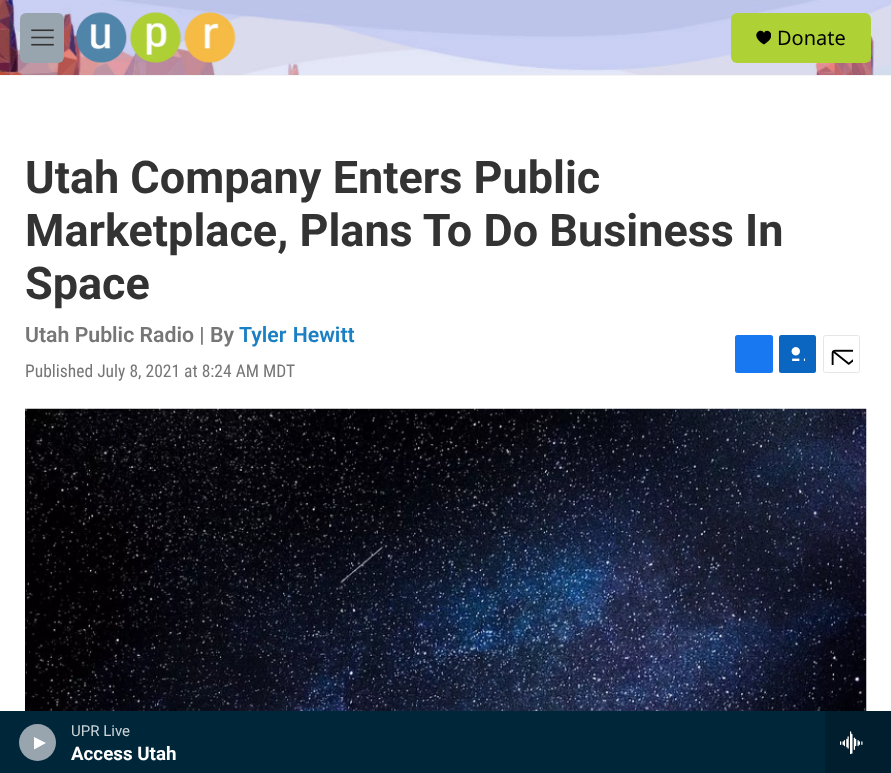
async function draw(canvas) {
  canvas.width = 891
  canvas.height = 773
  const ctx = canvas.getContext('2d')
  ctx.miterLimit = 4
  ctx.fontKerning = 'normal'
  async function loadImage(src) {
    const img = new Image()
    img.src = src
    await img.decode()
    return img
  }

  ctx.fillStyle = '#fff'
  ctx.fillRect(0, 0, 891, 773)
  ctx.fillStyle = '#f5f5f5'
  ctx.fillRect(0, 75, 891, 1)
  ctx.drawImage(await loadImage('image0.png'), 0, 0, 891, 75)
  ctx.fillStyle = '#98a4ae'
  ctx.beginPath()
  ctx.roundRect(20, 13, 44, 50, 6)
  ctx.fill()
  ctx.drawImage(await loadImage('image1.png'), 31, 29, 23, 17)
  ctx.drawImage(await loadImage('image2.png'), 76, 12, 160, 51)
  ctx.fillStyle = '#aed136'
  ctx.beginPath()
  ctx.roundRect(731, 13, 140, 50, 6)
  ctx.fill()
  ctx.save()
  ctx.beginPath()
  ctx.rect(756, 30, 15, 15)
  ctx.clip()
  ctx.fillStyle = '#000'
  ctx.beginPath()
  ctx.moveTo(764, 33)
  ctx.bezierCurveTo(761.5, 26.5, 748, 35, 764, 44.5)
  ctx.bezierCurveTo(779.5, 35, 766, 26.5, 764, 33)
  ctx.closePath()
  ctx.fill()
  ctx.restore()
  ctx.font = '20px Noto Sans'
  ctx.fillStyle = '#000'
  ctx.fillText('Donate', 777, 45)
  ctx.fillStyle = '#00263a'
  ctx.fillRect(0, 711, 825, 62)
  ctx.fillStyle = '#98a4ae'
  ctx.beginPath()
  ctx.arc(37.5, 742.5, 18.5, 0, 2 * Math.PI)
  ctx.fill()
  ctx.fillStyle = '#fff'
  ctx.beginPath()
  ctx.moveTo(34, 737)
  ctx.lineTo(46, 743)
  ctx.lineTo(34, 749.5)
  ctx.closePath()
  ctx.fill()
  ctx.font = '15px Roboto'
  ctx.fillStyle = '#ccd4d8'
  ctx.fillText('UPR Live', 71, 736)
  ctx.font = 'bold 18.75px "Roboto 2"'
  ctx.fillStyle = '#fff'
  ctx.fillText('Access Utah', 71, 760)
  ctx.fillStyle = '#001e2e'
  ctx.fillRect(825, 711, 66, 62)
  ctx.drawImage(await loadImage('image3.png'), 840, 731, 23, 23)
  ctx.font = 'bold 45px Roboto'
  ctx.fillStyle = '#333'
  ctx.fillText('Utah Company Enters Public', 25, 193)
  ctx.fillText('Marketplace, Plans To Do Business In', 25, 246)
  ctx.fillText('Space', 25, 299)
  ctx.font = '600 21.25px Roboto'
  ctx.fillStyle = '#767676'
  ctx.fillText('Utah Public Radio |', 25, 342)
  ctx.fillText('By', 210, 342)
  ctx.wordSpacing = '1px'
  ctx.fillStyle = '#1a7fc3'
  ctx.fillText('Tyler Hewitt', 239, 342)
  ctx.wordSpacing = '0px'
  ctx.font = '17.5px Roboto Condensed'
  ctx.fillStyle = '#767676'
  ctx.fillText('Published July 8, 2021 at 8:24 AM MDT', 25, 377)
  ctx.fillStyle = '#1778f2'
  ctx.beginPath()
  ctx.roundRect(735, 335, 38, 38, 2.5)
  ctx.fill()
  ctx.fillStyle = '#0a66c1'
  ctx.beginPath()
  ctx.roundRect(779, 335, 37, 38, 2.5)
  ctx.fill()
  ctx.drawImage(await loadImage('image4.png'), 791, 347, 14, 14)
  ctx.beginPath()
  ctx.roundRect(823.5, 335.5, 36, 37, 2)
  ctx.strokeStyle = '#e6e6e6'
  ctx.stroke()
  ctx.drawImage(await loadImage('image5.png'), 831, 349, 22, 16)
  ctx.drawImage(await loadImage('image6.png'), 25, 408, 842, 303)
}

draw(document.querySelector('canvas'))
